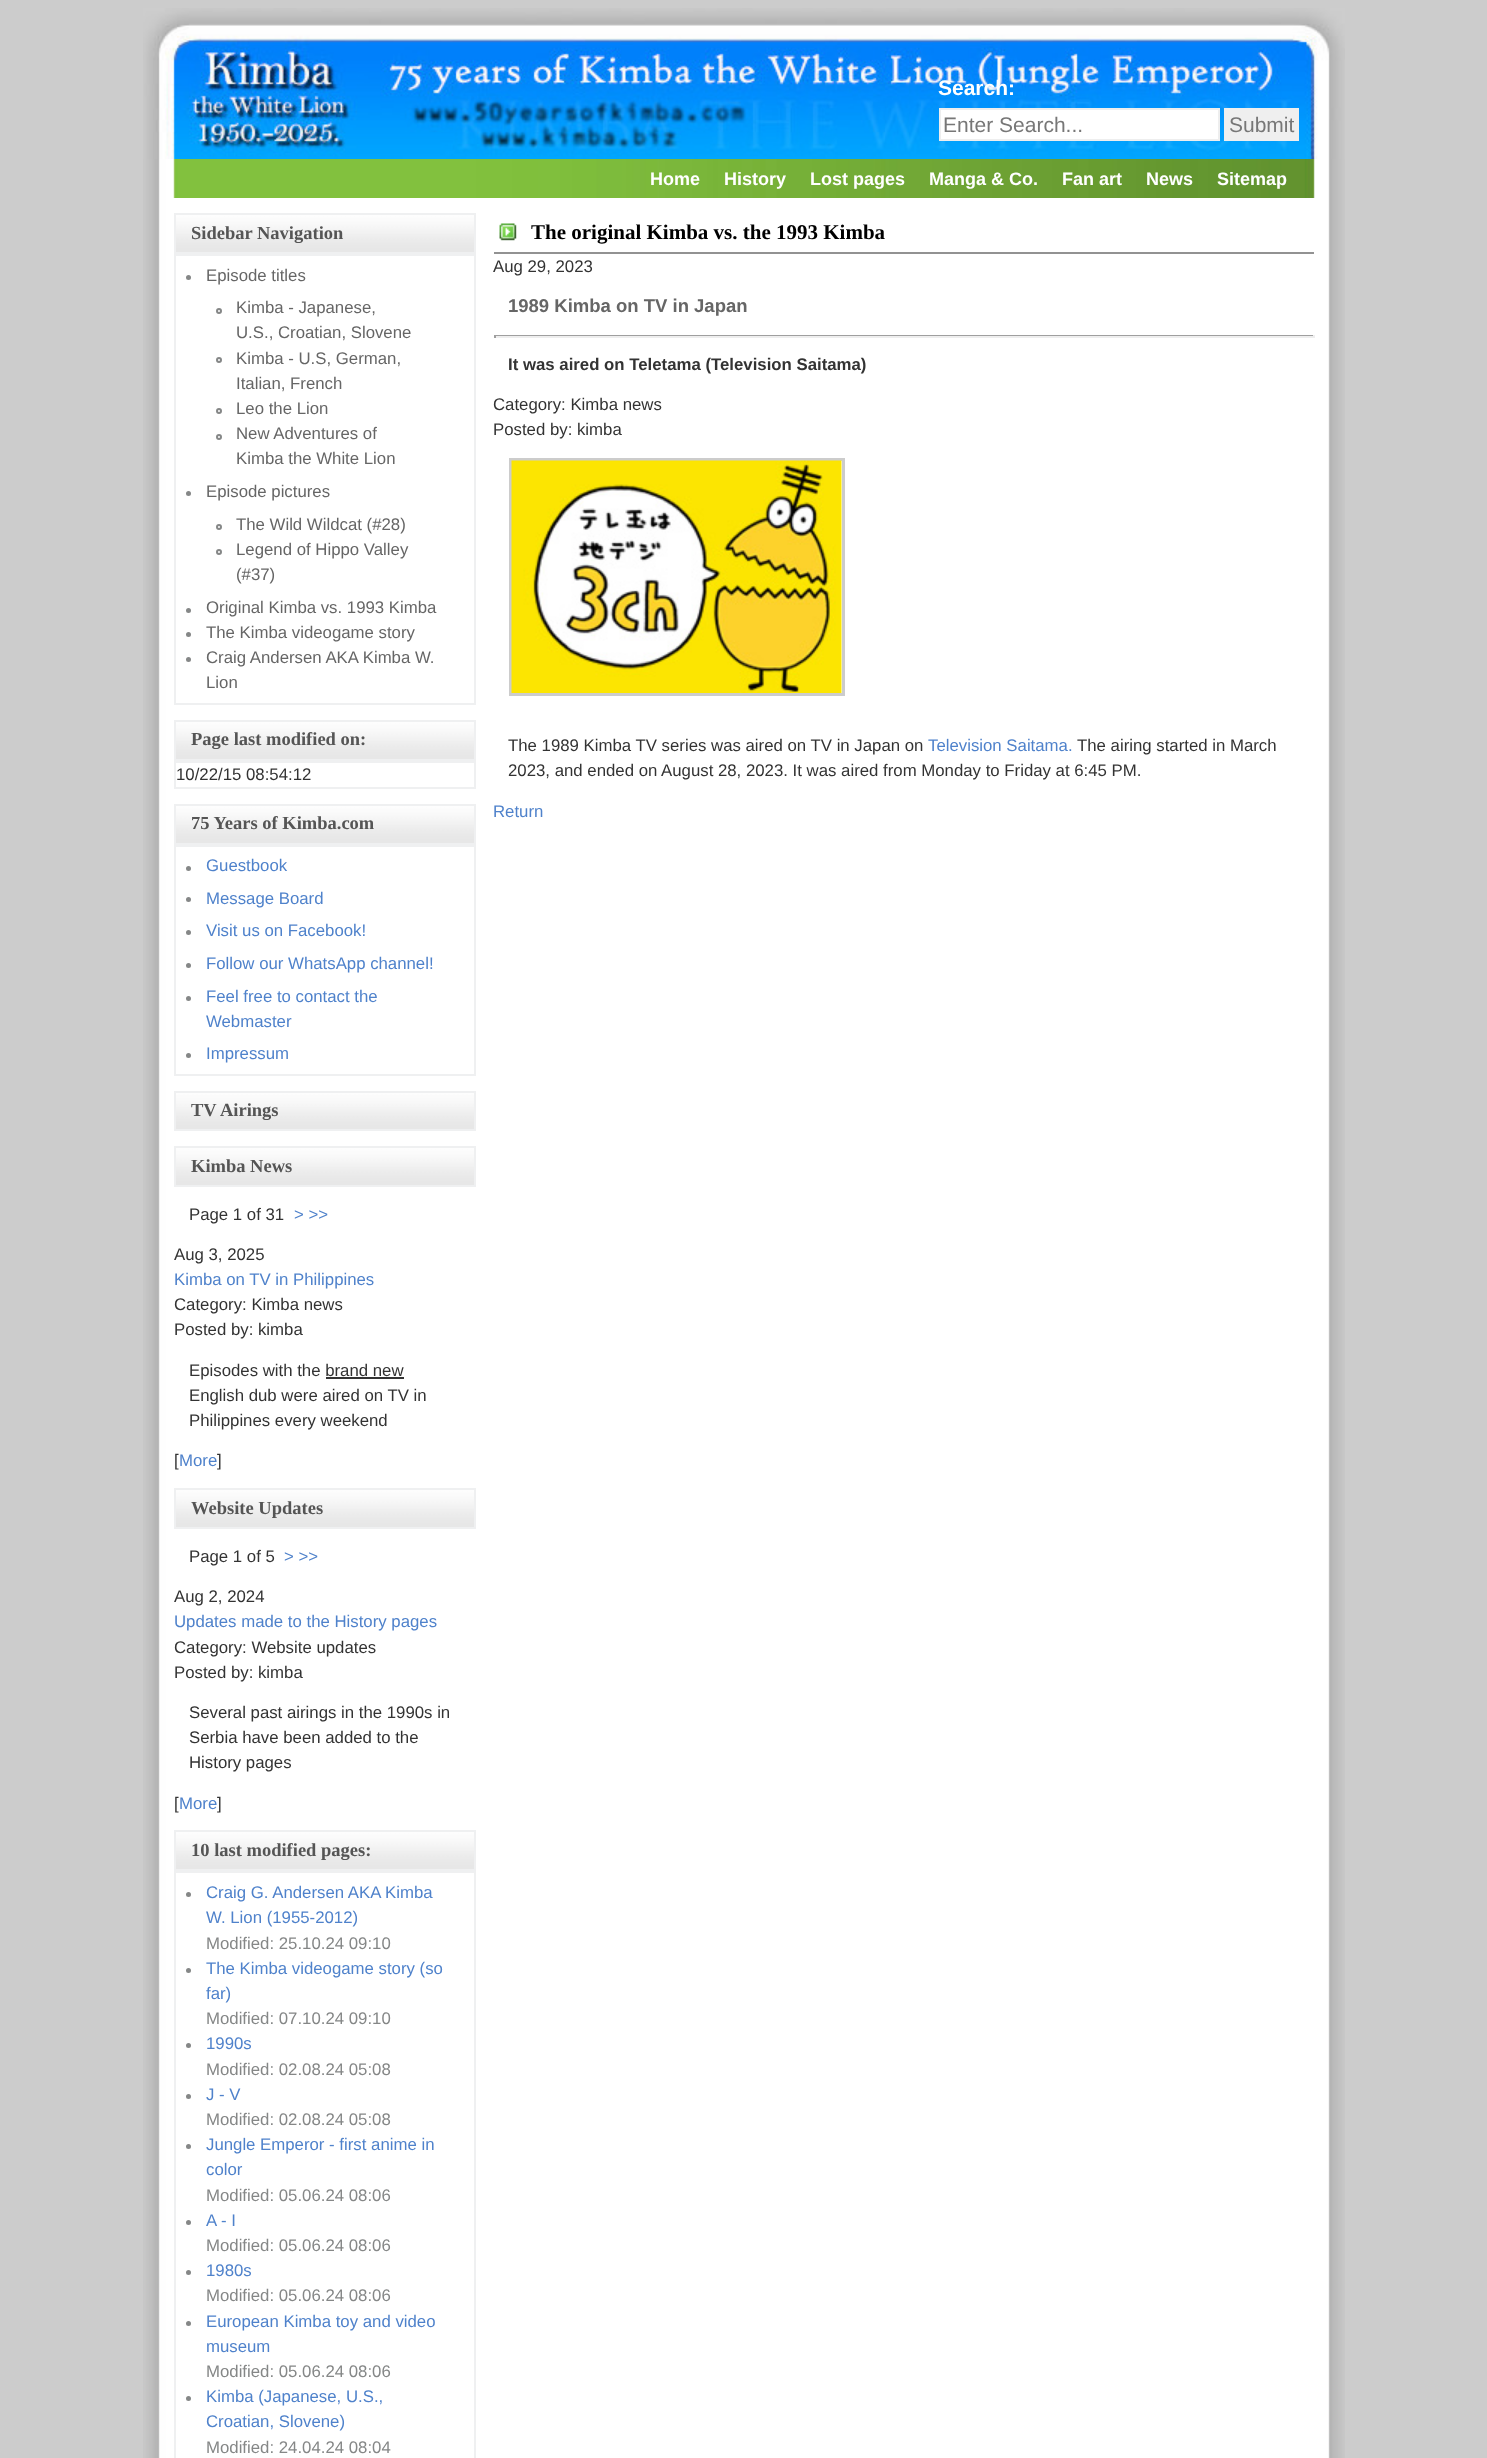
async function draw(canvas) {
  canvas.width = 1487
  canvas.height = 2458
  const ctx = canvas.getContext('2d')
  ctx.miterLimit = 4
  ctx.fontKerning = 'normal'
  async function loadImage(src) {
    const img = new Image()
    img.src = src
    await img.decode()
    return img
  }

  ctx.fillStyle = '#ccc'
  ctx.fillRect(0, 0, 1487, 2458)
  ctx.drawImage(await loadImage('image0.png'), 143, 159, 1202, 2299)
  ctx.drawImage(await loadImage('image1.png'), 143, 8, 1202, 151)
  ctx.font = 'bold 21px Liberation Sans'
  ctx.fillStyle = '#fff'
  ctx.fillText('Search:', 938, 95)
  ctx.beginPath()
  ctx.rect(940, 109, 279, 31)
  ctx.fill()
  ctx.strokeStyle = '#eee'
  ctx.lineWidth = 2
  ctx.stroke()
  ctx.font = '21px Liberation Sans'
  ctx.fillStyle = '#777'
  ctx.fillText('Enter Search...', 943, 132)
  ctx.fillStyle = '#efefef'
  ctx.fillRect(1224, 108, 75, 33)
  ctx.fillStyle = '#777'
  ctx.fillText('Submit', 1229, 132)
  ctx.drawImage(await loadImage('image2.png'), 173, 159, 1142, 39)
  ctx.font = 'bold 18px Liberation Sans'
  ctx.fillStyle = '#fff'
  ctx.fillText('Home', 650, 185)
  ctx.fillText('History', 724, 185)
  ctx.fillText('Lost pages', 810, 185)
  ctx.fillText('Manga & Co.', 929, 185)
  ctx.fillText('Fan art', 1062, 185)
  ctx.fillText('News', 1146, 185)
  ctx.fillText('Sitemap', 1217, 185)
  ctx.drawImage(await loadImage('image3.png'), 176, 215, 298, 37)
  ctx.strokeStyle = '#eff0f1'
  ctx.strokeRect(175, 214, 300, 39)
  ctx.font = 'bold 18.5px Liberation Serif'
  ctx.fillStyle = '#555'
  ctx.fillText('Sidebar Navigation', 191, 239)
  ctx.strokeRect(175, 255, 300, 449)
  ctx.fillStyle = '#858787'
  ctx.beginPath()
  ctx.arc(188.5, 277.5, 2.5, 0, 2 * Math.PI)
  ctx.fill()
  ctx.font = '16.8px Liberation Sans'
  ctx.fillStyle = '#666'
  ctx.fillText('Episode titles', 206, 281)
  ctx.beginPath()
  ctx.arc(219, 311, 2, 0, 2 * Math.PI)
  ctx.strokeStyle = '#858787'
  ctx.stroke()
  ctx.fillText('Kimba - Japanese,', 236, 313)
  ctx.fillText('U.S., Croatian, Slovene', 236, 338)
  ctx.beginPath()
  ctx.arc(219, 360, 2, 0, 2 * Math.PI)
  ctx.stroke()
  ctx.fillText('Kimba - U.S, German,', 236, 364)
  ctx.fillText('Italian, French', 236, 389)
  ctx.beginPath()
  ctx.arc(219, 411, 2, 0, 2 * Math.PI)
  ctx.stroke()
  ctx.fillText('Leo the Lion', 236, 414)
  ctx.beginPath()
  ctx.arc(219, 437, 2, 0, 2 * Math.PI)
  ctx.stroke()
  ctx.fillText('New Adventures of', 236, 439)
  ctx.fillText('Kimba the White Lion', 236, 464)
  ctx.fillStyle = '#858787'
  ctx.beginPath()
  ctx.arc(188.5, 493.5, 2.5, 0, 2 * Math.PI)
  ctx.fill()
  ctx.fillStyle = '#666'
  ctx.fillText('Episode pictures', 206, 497)
  ctx.beginPath()
  ctx.arc(219, 527, 2, 0, 2 * Math.PI)
  ctx.stroke()
  ctx.fillText('The Wild Wildcat (#28)', 236, 530)
  ctx.beginPath()
  ctx.arc(219, 552, 2, 0, 2 * Math.PI)
  ctx.stroke()
  ctx.fillText('Legend of Hippo Valley', 236, 555)
  ctx.fillText('(#37)', 236, 580)
  ctx.fillStyle = '#858787'
  ctx.beginPath()
  ctx.arc(188.5, 610.5, 2.5, 0, 2 * Math.PI)
  ctx.fill()
  ctx.fillStyle = '#666'
  ctx.fillText('Original Kimba vs. 1993 Kimba', 206, 613)
  ctx.fillStyle = '#858787'
  ctx.beginPath()
  ctx.arc(188.5, 634.5, 2.5, 0, 2 * Math.PI)
  ctx.fill()
  ctx.fillStyle = '#666'
  ctx.fillText('The Kimba videogame story', 206, 638)
  ctx.fillStyle = '#858787'
  ctx.beginPath()
  ctx.arc(188.5, 659.5, 2.5, 0, 2 * Math.PI)
  ctx.fill()
  ctx.fillStyle = '#666'
  ctx.fillText('Craig Andersen AKA Kimba W.', 206, 663)
  ctx.fillText('Lion', 206, 688)
  ctx.drawImage(await loadImage('image4.png'), 176, 722, 298, 37)
  ctx.strokeStyle = '#eff0f1'
  ctx.strokeRect(175, 721, 300, 39)
  ctx.font = 'bold 18.5px Liberation Serif'
  ctx.fillStyle = '#555'
  ctx.fillText('Page last modified on:', 191, 745)
  ctx.strokeRect(175, 762, 300, 26)
  ctx.font = '16.8px Liberation Sans'
  ctx.fillStyle = '#333'
  ctx.fillText('10/22/15 08:54:12', 176, 780)
  ctx.drawImage(await loadImage('image4.png'), 176, 806, 298, 37)
  ctx.strokeRect(175, 805, 300, 39)
  ctx.font = 'bold 18.5px Liberation Serif'
  ctx.fillStyle = '#555'
  ctx.fillText('75 Years of Kimba.com', 191, 829)
  ctx.strokeRect(175, 846, 300, 229)
  ctx.fillStyle = '#858787'
  ctx.beginPath()
  ctx.arc(188.5, 868.5, 2.5, 0, 2 * Math.PI)
  ctx.fill()
  ctx.font = '16.8px Liberation Sans'
  ctx.fillStyle = '#4f82cb'
  ctx.fillText('Guestbook', 206, 871)
  ctx.fillStyle = '#858787'
  ctx.beginPath()
  ctx.arc(188.5, 899.5, 2.5, 0, 2 * Math.PI)
  ctx.fill()
  ctx.fillStyle = '#4f82cb'
  ctx.fillText('Message Board', 206, 904)
  ctx.fillStyle = '#858787'
  ctx.beginPath()
  ctx.arc(188.5, 932.5, 2.5, 0, 2 * Math.PI)
  ctx.fill()
  ctx.fillStyle = '#4f82cb'
  ctx.fillText('Visit us on Facebook!', 206, 936)
  ctx.fillStyle = '#858787'
  ctx.beginPath()
  ctx.arc(188.5, 965.5, 2.5, 0, 2 * Math.PI)
  ctx.fill()
  ctx.fillStyle = '#4f82cb'
  ctx.fillText('Follow our WhatsApp channel!', 206, 969)
  ctx.fillStyle = '#858787'
  ctx.beginPath()
  ctx.arc(188.5, 998.5, 2.5, 0, 2 * Math.PI)
  ctx.fill()
  ctx.fillStyle = '#4f82cb'
  ctx.fillText('Feel free to contact the', 206, 1002)
  ctx.fillText('Webmaster', 206, 1027)
  ctx.fillStyle = '#858787'
  ctx.beginPath()
  ctx.arc(188.5, 1055.5, 2.5, 0, 2 * Math.PI)
  ctx.fill()
  ctx.fillStyle = '#4f82cb'
  ctx.fillText('Impressum', 206, 1059)
  ctx.drawImage(await loadImage('image5.png'), 176, 1093, 298, 36)
  ctx.strokeRect(175, 1092, 300, 38)
  ctx.font = 'bold 18.5px Liberation Serif'
  ctx.fillStyle = '#555'
  ctx.fillText('TV Airings', 191, 1116)
  ctx.drawImage(await loadImage('image4.png'), 176, 1148, 298, 37)
  ctx.strokeRect(175, 1147, 300, 39)
  ctx.fillText('Kimba News', 191, 1172)
  ctx.font = '16.8px Liberation Sans'
  ctx.fillStyle = '#333'
  ctx.fillText('Page 1 of 31', 189, 1220)
  ctx.fillStyle = '#4f82cb'
  ctx.fillText('> >>', 294, 1220)
  ctx.fillStyle = '#333'
  ctx.fillText('Aug 3, 2025', 174, 1260)
  ctx.fillStyle = '#4f82cb'
  ctx.fillText('Kimba on TV in Philippines', 174, 1285)
  ctx.fillStyle = '#333'
  ctx.fillText('Category: Kimba news', 174, 1310)
  ctx.fillText('Posted by: kimba', 174, 1335)
  ctx.fillText('Episodes with the brand new', 189, 1376)
  ctx.fillRect(326, 1377, 78, 2)
  ctx.fillText('English dub were aired on TV in', 189, 1401)
  ctx.fillText('Philippines every weekend', 189, 1426)
  ctx.fillText('[', 174, 1466)
  ctx.fillStyle = '#4f82cb'
  ctx.fillText('More', 179, 1466)
  ctx.fillStyle = '#333'
  ctx.fillText(']', 217, 1466)
  ctx.drawImage(await loadImage('image4.png'), 176, 1490, 298, 37)
  ctx.strokeRect(175, 1489, 300, 39)
  ctx.font = 'bold 18.5px Liberation Serif'
  ctx.fillStyle = '#555'
  ctx.fillText('Website Updates', 191, 1514)
  ctx.font = '16.8px Liberation Sans'
  ctx.fillStyle = '#333'
  ctx.fillText('Page 1 of 5', 189, 1562)
  ctx.fillStyle = '#4f82cb'
  ctx.fillText('> >>', 284, 1562)
  ctx.fillStyle = '#333'
  ctx.fillText('Aug 2, 2024', 174, 1602)
  ctx.fillStyle = '#4f82cb'
  ctx.fillText('Updates made to the History pages', 174, 1627)
  ctx.fillStyle = '#333'
  ctx.fillText('Category: Website updates', 174, 1653)
  ctx.fillText('Posted by: kimba', 174, 1678)
  ctx.fillText('Several past airings in the 1990s in', 189, 1718)
  ctx.fillText('Serbia have been added to the', 189, 1743)
  ctx.fillText('History pages', 189, 1768)
  ctx.fillText('[', 174, 1809)
  ctx.fillStyle = '#4f82cb'
  ctx.fillText('More', 179, 1809)
  ctx.fillStyle = '#333'
  ctx.fillText(']', 217, 1809)
  ctx.drawImage(await loadImage('image4.png'), 176, 1832, 298, 37)
  ctx.strokeRect(175, 1831, 300, 39)
  ctx.font = 'bold 18.5px Liberation Serif'
  ctx.fillStyle = '#555'
  ctx.fillText('10 last modified pages:', 191, 1856)
  ctx.strokeRect(175, 1872, 300, 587)
  ctx.fillStyle = '#858787'
  ctx.beginPath()
  ctx.arc(188.5, 1894.5, 2.5, 0, 2 * Math.PI)
  ctx.fill()
  ctx.font = '16.8px Liberation Sans'
  ctx.fillStyle = '#4f82cb'
  ctx.fillText('Craig G. Andersen AKA Kimba', 206, 1898)
  ctx.fillText('W. Lion (1955-2012)', 206, 1923)
  ctx.fillStyle = '#858787'
  ctx.fillText('Modified: 25.10.24 09:10', 206, 1949)
  ctx.beginPath()
  ctx.arc(188.5, 1970.5, 2.5, 0, 2 * Math.PI)
  ctx.fill()
  ctx.fillStyle = '#4f82cb'
  ctx.fillText('The Kimba videogame story (so', 206, 1974)
  ctx.fillText('far)', 206, 1999)
  ctx.fillStyle = '#858787'
  ctx.fillText('Modified: 07.10.24 09:10', 206, 2024)
  ctx.beginPath()
  ctx.arc(188.5, 2045.5, 2.5, 0, 2 * Math.PI)
  ctx.fill()
  ctx.fillStyle = '#4f82cb'
  ctx.fillText('1990s', 206, 2049)
  ctx.fillStyle = '#858787'
  ctx.fillText('Modified: 02.08.24 05:08', 206, 2075)
  ctx.beginPath()
  ctx.arc(188.5, 2096.5, 2.5, 0, 2 * Math.PI)
  ctx.fill()
  ctx.fillStyle = '#4f82cb'
  ctx.fillText('J - V', 206, 2100)
  ctx.fillStyle = '#858787'
  ctx.fillText('Modified: 02.08.24 05:08', 206, 2125)
  ctx.beginPath()
  ctx.arc(188.5, 2146.5, 2.5, 0, 2 * Math.PI)
  ctx.fill()
  ctx.fillStyle = '#4f82cb'
  ctx.fillText('Jungle Emperor - first anime in', 206, 2150)
  ctx.fillText('color', 206, 2175)
  ctx.fillStyle = '#858787'
  ctx.fillText('Modified: 05.06.24 08:06', 206, 2201)
  ctx.beginPath()
  ctx.arc(188.5, 2222.5, 2.5, 0, 2 * Math.PI)
  ctx.fill()
  ctx.fillStyle = '#4f82cb'
  ctx.fillText('A - I', 206, 2226)
  ctx.fillStyle = '#858787'
  ctx.fillText('Modified: 05.06.24 08:06', 206, 2251)
  ctx.beginPath()
  ctx.arc(188.5, 2272.5, 2.5, 0, 2 * Math.PI)
  ctx.fill()
  ctx.fillStyle = '#4f82cb'
  ctx.fillText('1980s', 206, 2276)
  ctx.fillStyle = '#858787'
  ctx.fillText('Modified: 05.06.24 08:06', 206, 2301)
  ctx.beginPath()
  ctx.arc(188.5, 2323.5, 2.5, 0, 2 * Math.PI)
  ctx.fill()
  ctx.fillStyle = '#4f82cb'
  ctx.fillText('European Kimba toy and video', 206, 2327)
  ctx.fillText('museum', 206, 2352)
  ctx.fillStyle = '#858787'
  ctx.fillText('Modified: 05.06.24 08:06', 206, 2377)
  ctx.beginPath()
  ctx.arc(188.5, 2398.5, 2.5, 0, 2 * Math.PI)
  ctx.fill()
  ctx.fillStyle = '#4f82cb'
  ctx.fillText('Kimba (Japanese, U.S.,', 206, 2402)
  ctx.fillText('Croatian, Slovene)', 206, 2427)
  ctx.fillStyle = '#858787'
  ctx.fillText('Modified: 24.04.24 08:04', 206, 2453)
  ctx.drawImage(await loadImage('image6.png'), 499, 223, 18, 18)
  ctx.fillStyle = '#929292'
  ctx.fillRect(494, 252, 820, 2)
  ctx.font = 'bold 21px Liberation Serif'
  ctx.fillStyle = '#000'
  ctx.fillText('The original Kimba vs. the 1993 Kimba', 531, 239)
  ctx.font = '16.8px Liberation Sans'
  ctx.fillStyle = '#333'
  ctx.fillText('Aug 29, 2023', 493, 272)
  ctx.font = 'bold 18.5px Liberation Sans'
  ctx.fillStyle = '#666'
  ctx.fillText('1989 Kimba on TV in Japan', 508, 312)
  ctx.fillStyle = '#9f9f9f'
  ctx.fillRect(494, 335, 820, 1)
  ctx.fillStyle = '#eee'
  ctx.fillRect(1313, 335, 2, 3)
  ctx.fillRect(494, 336, 820, 2)
  ctx.fillStyle = '#9f9f9f'
  ctx.fillRect(494, 335, 2, 3)
  ctx.font = 'bold 16.8px Liberation Sans'
  ctx.fillStyle = '#333'
  ctx.fillText('It was aired on Teletama (Television Saitama)', 508, 370)
  ctx.font = '16.8px Liberation Sans'
  ctx.fillText('Category: Kimba news', 493, 410)
  ctx.fillText('Posted by: kimba', 493, 435)
  ctx.strokeStyle = '#ccc'
  ctx.lineWidth = 3
  ctx.strokeRect(510.5, 459.5, 333, 235)
  ctx.drawImage(await loadImage('image7.png'), 511, 460, 331, 233)
  ctx.fillText('The 1989 Kimba TV series was aired on TV in Japan on', 508, 751)
  ctx.fillStyle = '#4f82cb'
  ctx.fillText('Television Saitama.', 928, 751)
  ctx.fillStyle = '#333'
  ctx.fillText('The airing started in March', 1077, 751)
  ctx.fillText('2023, and ended on August 28, 2023. It was aired from Monday to Friday at 6:45 PM.', 508, 776)
  ctx.fillStyle = '#4f82cb'
  ctx.fillText('Return', 493, 817)
}

draw(document.querySelector('canvas'))
